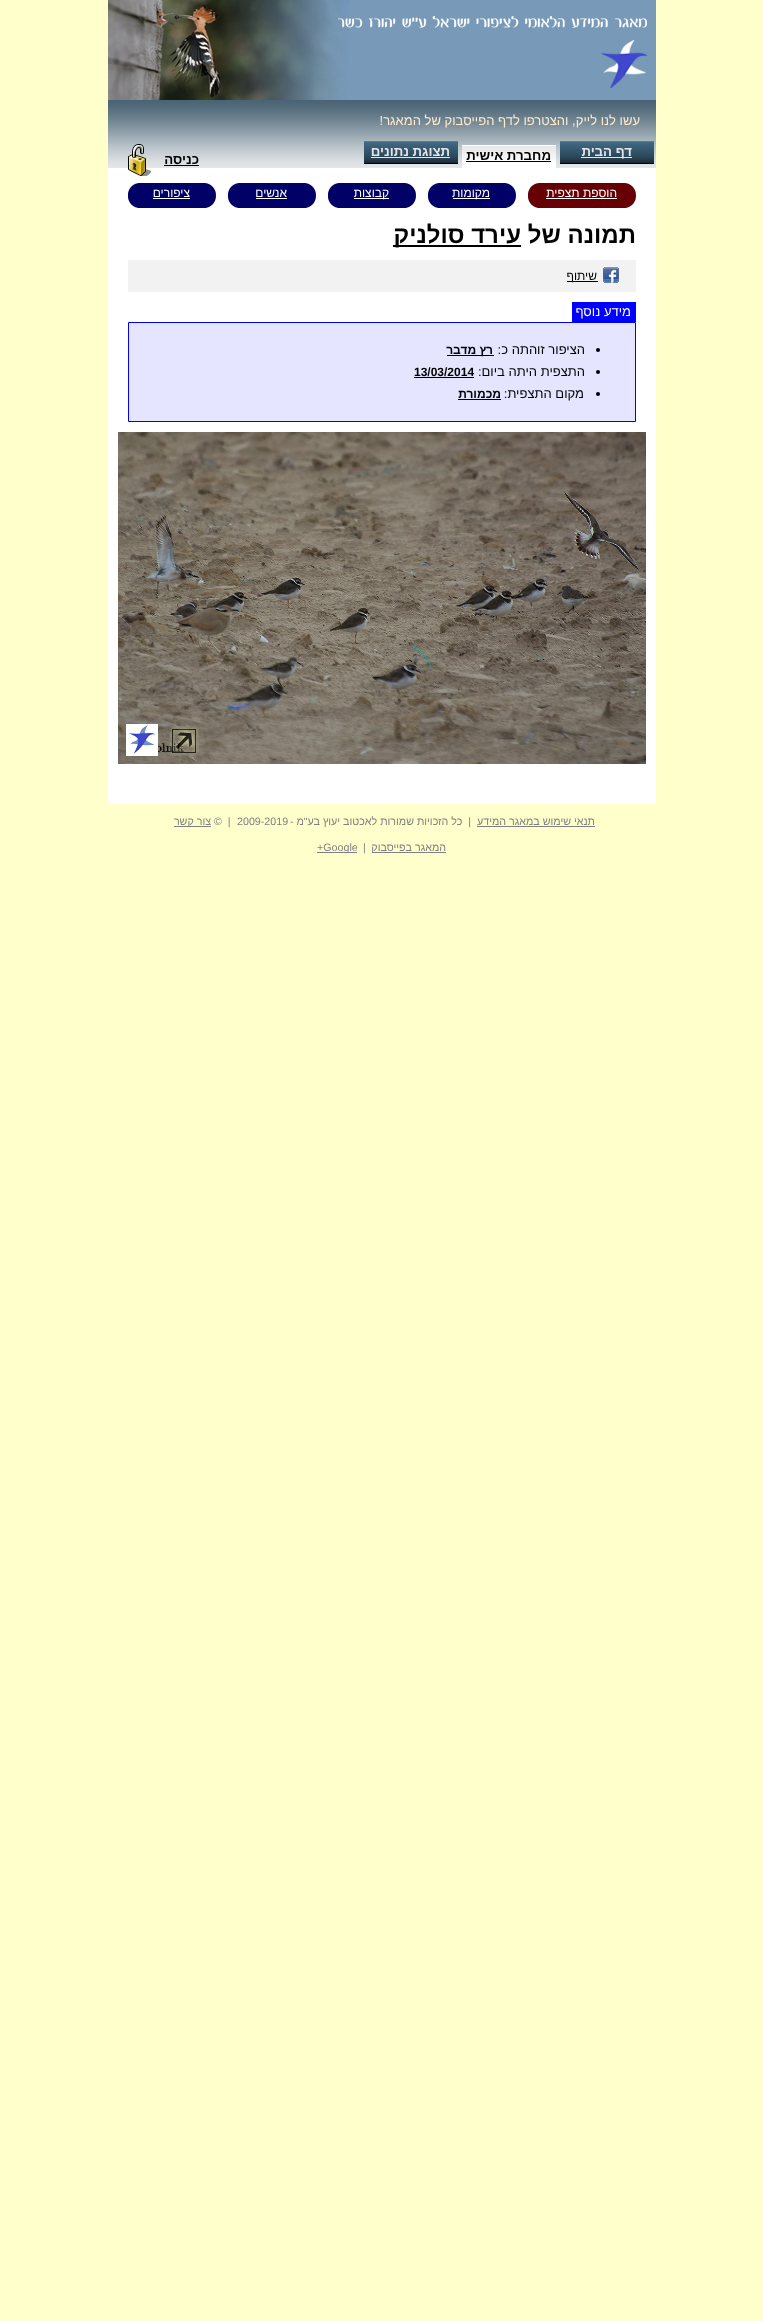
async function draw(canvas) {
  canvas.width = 763
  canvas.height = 2321
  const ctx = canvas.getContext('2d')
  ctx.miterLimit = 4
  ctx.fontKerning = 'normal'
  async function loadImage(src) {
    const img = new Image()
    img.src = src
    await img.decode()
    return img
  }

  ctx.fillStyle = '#ffc'
  ctx.fillRect(0, 0, 763, 2321)
  ctx.fillStyle = '#fff'
  ctx.fillRect(108, 168, 548, 636)
  ctx.drawImage(await loadImage('image0.png'), 108, 0, 548, 100)
  ctx.drawImage(await loadImage('image1.png'), 108, 100, 548, 68)
  ctx.direction = 'rtl'
  ctx.font = '13px Liberation Sans'
  ctx.fillStyle = '#ffebcd'
  ctx.fillText('עשו לנו לייק, והצטרפו לדף הפייסבוק של המאגר!', 640, 125)
  ctx.drawImage(await loadImage('image2.png'), 560, 141, 94, 23)
  ctx.fillStyle = '#e5e5e5'
  ctx.fillRect(581, 157, 51, 1)
  ctx.font = 'bold 13.25px Liberation Sans'
  ctx.fillText('דף הבית', 632, 156)
  ctx.drawImage(await loadImage('image3.png'), 462, 145, 94, 23)
  ctx.fillStyle = '#000'
  ctx.fillText('מחברת אישית', 551, 160)
  ctx.fillRect(466, 161, 85, 1)
  ctx.drawImage(await loadImage('image2.png'), 364, 141, 94, 23)
  ctx.fillStyle = '#e5e5e5'
  ctx.fillText('תצוגת נתונים', 450, 156)
  ctx.fillRect(371, 157, 79, 1)
  ctx.fillStyle = '#000'
  ctx.fillText('כניסה', 199, 164)
  ctx.fillRect(164, 165, 35, 1)
  ctx.drawImage(await loadImage('image4.png'), 128, 144, 24, 32)
  ctx.drawImage(await loadImage('image5.png'), 528, 183, 108, 25)
  ctx.font = '12px Liberation Sans'
  ctx.fillStyle = '#fff'
  ctx.fillText('הוספת תצפית', 617, 197)
  ctx.fillRect(546, 198, 71, 1)
  ctx.drawImage(await loadImage('image6.png'), 428, 183, 88, 25)
  ctx.fillRect(453, 198, 37, 1)
  ctx.fillText('מקומות', 490, 197)
  ctx.drawImage(await loadImage('image6.png'), 328, 183, 88, 25)
  ctx.fillRect(354, 198, 35, 1)
  ctx.fillText('קבוצות', 389, 197)
  ctx.drawImage(await loadImage('image6.png'), 228, 183, 88, 25)
  ctx.fillText('אנשים', 287, 197)
  ctx.fillRect(256, 198, 31, 1)
  ctx.drawImage(await loadImage('image6.png'), 128, 183, 88, 25)
  ctx.fillText('ציפורים', 190, 197)
  ctx.fillRect(153, 198, 37, 1)
  ctx.font = 'bold 24px Liberation Sans'
  ctx.fillStyle = '#000'
  ctx.fillText('תמונה של', 636, 243)
  ctx.fillRect(393, 245, 128, 2)
  ctx.fillText('עירד סולניק', 521, 243)
  ctx.fillStyle = '#f2f2f2'
  ctx.fillRect(128, 260, 508, 32)
  ctx.drawImage(await loadImage('image7.png'), 603, 267, 16, 16)
  ctx.fillStyle = '#000'
  ctx.fillRect(567, 281, 31, 1)
  ctx.font = '12px Liberation Sans'
  ctx.fillText('שיתוף', 597, 280)
  ctx.fillStyle = '#00f'
  ctx.fillRect(572, 302, 64, 20)
  ctx.font = '13px Liberation Sans'
  ctx.fillStyle = '#fff'
  ctx.fillText('מידע נוסף', 631, 316)
  ctx.fillStyle = '#e5e5ff'
  ctx.beginPath()
  ctx.rect(128.5, 322.5, 507, 99)
  ctx.fill()
  ctx.strokeStyle = '#00f'
  ctx.stroke()
  ctx.fillStyle = '#000'
  ctx.beginPath()
  ctx.arc(598, 350, 2, 0, 2 * Math.PI)
  ctx.fill()
  ctx.fillText('הציפור זוהתה כ:', 585, 354)
  ctx.fillRect(447, 355, 47, 1)
  ctx.font = 'bold 12px Liberation Sans'
  ctx.fillText('רץ מדבר', 493, 354)
  ctx.beginPath()
  ctx.arc(598, 372, 2, 0, 2 * Math.PI)
  ctx.fill()
  ctx.font = '13px Liberation Sans'
  ctx.fillText('התצפית היתה ביום:', 585, 376)
  ctx.direction = 'ltr'
  ctx.font = 'bold 12px Liberation Sans'
  ctx.fillText('13/03/2014', 414, 376)
  ctx.fillRect(414, 377, 60, 1)
  ctx.beginPath()
  ctx.arc(598, 394, 2, 0, 2 * Math.PI)
  ctx.fill()
  ctx.direction = 'rtl'
  ctx.font = '13px Liberation Sans'
  ctx.fillText('מקום התצפית:', 584, 398)
  ctx.font = 'bold 12px Liberation Sans'
  ctx.fillText('מכמורת', 501, 398)
  ctx.fillRect(458, 399, 43, 1)
  ctx.drawImage(await loadImage('image8.png'), 118, 432, 528, 332)
  ctx.drawImage(await loadImage('image9.png'), 169, 726, 30, 30)
  ctx.drawImage(await loadImage('image10.png'), 126, 724, 32, 32)
  ctx.font = '10.7px Liberation Sans'
  ctx.fillStyle = '#808080'
  ctx.fillText('תנאי שימוש במאגר המידע', 595, 825)
  ctx.fillRect(477, 826, 118, 1)
  ctx.fillText('|  כל הזכויות שמורות לאכטוב יעוץ בע"מ -', 471, 825)
  ctx.direction = 'ltr'
  ctx.fillText('2009-2019', 237, 825)
  ctx.fillText('©  |', 214, 825)
  ctx.fillRect(174, 826, 37, 1)
  ctx.direction = 'rtl'
  ctx.fillText('צור קשר', 211, 825)
  ctx.fillRect(372, 852, 74, 1)
  ctx.fillText('המאגר בפייסבוק', 446, 851)
  ctx.direction = 'ltr'
  ctx.fillText('|', 363, 851)
  ctx.fillRect(317, 852, 40, 1)
  ctx.fillText('+Google', 317, 851)
}

draw(document.querySelector('canvas'))
